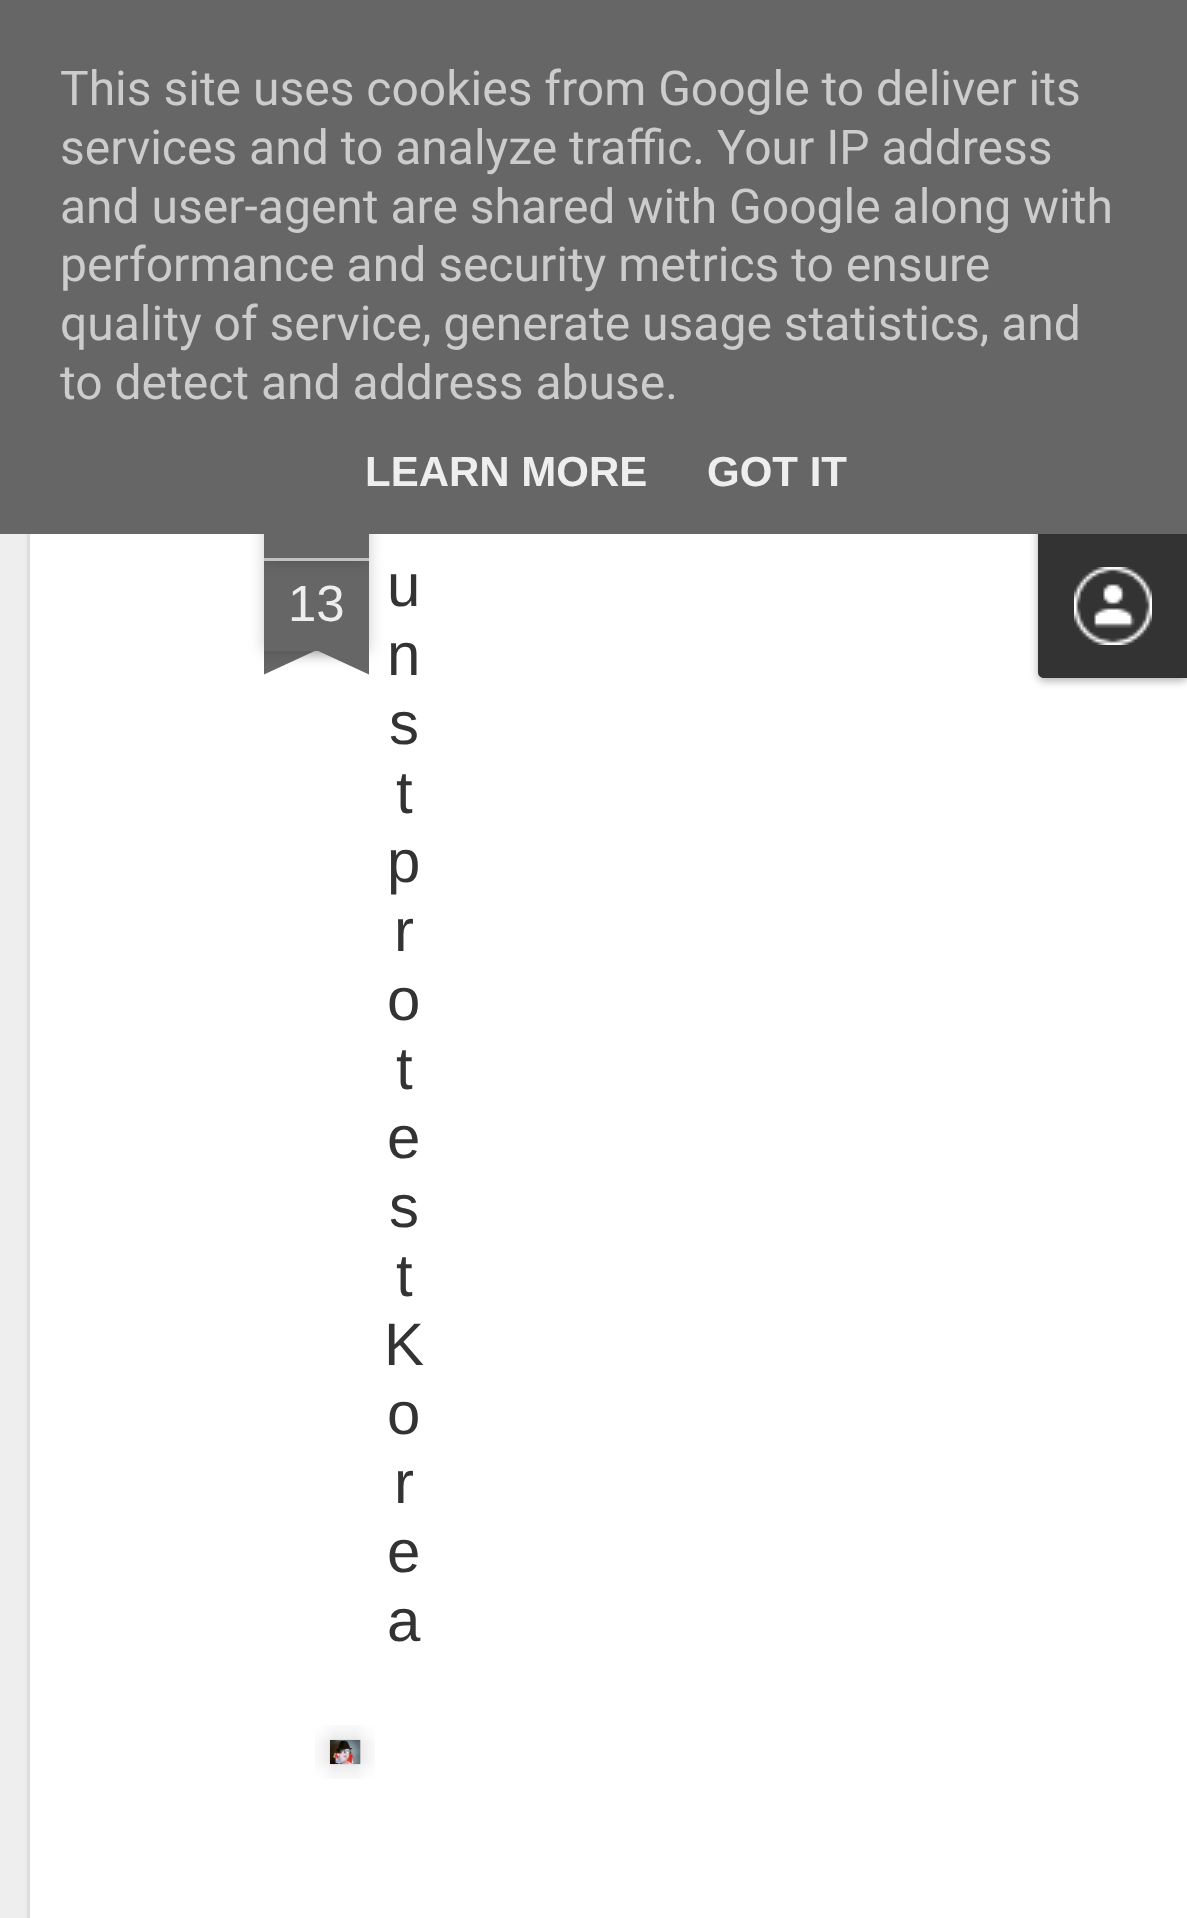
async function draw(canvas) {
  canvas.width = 1187
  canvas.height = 1918
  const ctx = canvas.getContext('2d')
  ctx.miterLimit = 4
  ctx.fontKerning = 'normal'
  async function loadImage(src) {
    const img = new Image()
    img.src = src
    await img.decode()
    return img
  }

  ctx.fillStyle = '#eee'
  ctx.fillRect(0, 0, 1187, 1918)
  ctx.fillStyle = '#fff'
  ctx.fillRect(24, 534, 1163, 1384)
  ctx.fillStyle = '#0000004d'
  ctx.filter = 'blur(4.5px)'
  ctx.beginPath()
  ctx.roundRect(1038, 375, 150, 306, 6)
  ctx.fill()
  ctx.filter = 'none'
  ctx.fillStyle = '#333'
  ctx.beginPath()
  ctx.moveTo(1038, 525)
  ctx.lineTo(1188, 525)
  ctx.lineTo(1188, 678)
  ctx.lineTo(1044, 678)
  ctx.bezierCurveTo(1040.5, 678, 1038, 675.5, 1038, 672)
  ctx.closePath()
  ctx.fill()
  ctx.fillStyle = '#00000033'
  ctx.filter = 'blur(7.5px)'
  ctx.beginPath()
  ctx.rect(264, 561, 105, 90)
  ctx.fill()
  ctx.filter = 'none'
  ctx.fillStyle = '#666'
  ctx.fillRect(264, 561, 105, 90)
  ctx.fillStyle = '#00000033'
  ctx.filter = 'blur(7.5px)'
  ctx.beginPath()
  ctx.roundRect(264, 498, 105, 63, 3)
  ctx.fill()
  ctx.filter = 'none'
  ctx.fillStyle = '#666'
  ctx.fillRect(0, 0, 1187, 534)
  ctx.font = '48px Roboto'
  ctx.fillStyle = '#ccc'
  ctx.fillText('This site uses cookies from Google to deliver its', 60, 105)
  ctx.fillText('services and to analyze traffic. Your IP address', 60, 164)
  ctx.fillText('and user-agent are shared with Google along with', 60, 223)
  ctx.fillText('performance and security metrics to ensure', 60, 281)
  ctx.fillText('quality of service, generate usage statistics, and', 60, 340)
  ctx.fillText('to detect and address abuse.', 60, 399)
  ctx.font = 'bold 42px Liberation Sans'
  ctx.fillStyle = '#eee'
  ctx.fillText('LEARN MORE', 365, 486)
  ctx.fillText('GOT IT', 707, 486)
  ctx.drawImage(await loadImage('image0.png'), 1074, 567, 78, 78)
  ctx.drawImage(await loadImage('image1.png'), 24, 534, 6, 1384)
  ctx.fillStyle = '#666'
  ctx.fillRect(264, 534, 105, 24)
  ctx.fillStyle = '#c2c2c2'
  ctx.fillRect(264, 558, 105, 3)
  ctx.font = '51px Liberation Sans'
  ctx.fillStyle = '#eee'
  ctx.fillText('13', 288, 621)
  ctx.save()
  ctx.beginPath()
  ctx.rect(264, 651, 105, 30)
  ctx.clip()
  ctx.fillStyle = '#00000033'
  ctx.filter = 'blur(7.5px)'
  ctx.beginPath()
  ctx.rect(237, 621, 150, 30)
  ctx.fill()
  ctx.filter = 'none'
  ctx.restore()
  ctx.save()
  ctx.beginPath()
  ctx.rect(264, 651, 105, 30)
  ctx.clip()
  ctx.fillStyle = '#666'
  ctx.beginPath()
  ctx.moveTo(238, 654)
  ctx.lineTo(374, 591)
  ctx.lineTo(386, 618)
  ctx.lineTo(250, 681)
  ctx.closePath()
  ctx.fill()
  ctx.restore()
  ctx.save()
  ctx.beginPath()
  ctx.rect(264, 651, 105, 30)
  ctx.clip()
  ctx.fillStyle = '#00000033'
  ctx.filter = 'blur(7.5px)'
  ctx.beginPath()
  ctx.rect(246, 621, 150, 30)
  ctx.fill()
  ctx.filter = 'none'
  ctx.restore()
  ctx.save()
  ctx.beginPath()
  ctx.rect(264, 651, 105, 30)
  ctx.clip()
  ctx.fillStyle = '#666'
  ctx.beginPath()
  ctx.moveTo(259, 591)
  ctx.lineTo(395, 654)
  ctx.lineTo(383, 681)
  ctx.lineTo(247, 618)
  ctx.closePath()
  ctx.fill()
  ctx.restore()
  ctx.font = '60px Liberation Sans'
  ctx.fillStyle = '#333'
  ctx.fillText('u', 387, 606)
  ctx.fillText('n', 387, 675)
  ctx.fillText('s', 389, 744)
  ctx.fillText('t', 396, 813)
  ctx.fillText('p', 387, 882)
  ctx.fillText('r', 394, 951)
  ctx.fillText('o', 387, 1020)
  ctx.fillText('t', 396, 1089)
  ctx.fillText('e', 387, 1158)
  ctx.fillText('s', 389, 1227)
  ctx.fillText('t', 396, 1296)
  ctx.fillText('K', 384, 1365)
  ctx.fillText('o', 387, 1434)
  ctx.fillText('r', 394, 1503)
  ctx.fillText('e', 387, 1572)
  ctx.fillText('a', 387, 1641)
  ctx.drawImage(await loadImage('image2.png'), 315, 1725, 60, 54)
  ctx.drawImage(await loadImage('image3.png'), 333, 1740, 28, 24)
}

draw(document.querySelector('canvas'))
